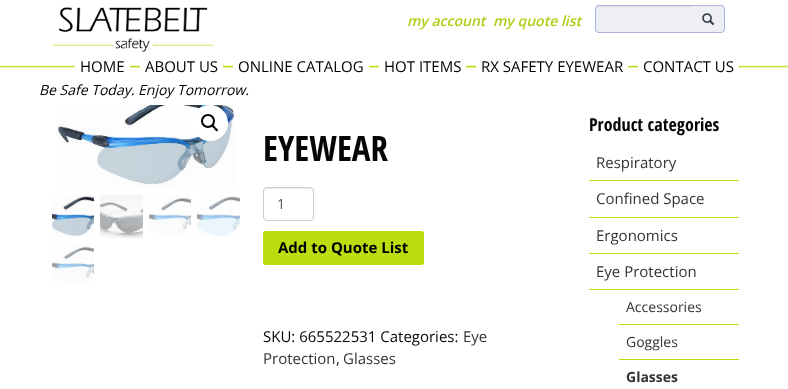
async function draw(canvas) {
  canvas.width = 788
  canvas.height = 389
  const ctx = canvas.getContext('2d')
  ctx.miterLimit = 4
  ctx.fontKerning = 'normal'
  async function loadImage(src) {
    const img = new Image()
    img.src = src
    await img.decode()
    return img
  }

  ctx.fillStyle = '#fff'
  ctx.fillRect(0, 0, 788, 389)
  ctx.drawImage(await loadImage('image0.png'), 0, 65, 788, 3)
  ctx.drawImage(await loadImage('image1.png'), 53, 7, 161, 45)
  ctx.font = 'italic 600 14px Open Sans'
  ctx.fillStyle = '#b0cd13'
  ctx.fillText('my account', 407, 26)
  ctx.fillText('my quote list', 493, 26)
  ctx.fillStyle = '#eeeff4'
  ctx.beginPath()
  ctx.roundRect(691.5, 5.5, 33, 27, [0, 3.5, 3.5, 0])
  ctx.fill()
  ctx.strokeStyle = '#acb2df'
  ctx.stroke()
  ctx.beginPath()
  ctx.roundRect(595, 5, 97, 28, [4, 0, 0, 4])
  ctx.fill()
  ctx.fillStyle = '#dcdde2'
  ctx.beginPath()
  ctx.moveTo(599, 7)
  ctx.lineTo(692, 7)
  ctx.lineTo(692, 6)
  ctx.lineTo(599, 6)
  ctx.bezierCurveTo(597, 6, 596, 7, 596, 9)
  ctx.lineTo(596, 10)
  ctx.bezierCurveTo(596, 8, 597, 7, 599, 7)
  ctx.closePath()
  ctx.fill()
  ctx.fillStyle = '#acb2df'
  ctx.beginPath()
  ctx.moveTo(599, 5)
  ctx.lineTo(692, 5)
  ctx.lineTo(692, 33)
  ctx.lineTo(599, 33)
  ctx.bezierCurveTo(597, 33, 595, 31, 595, 29)
  ctx.lineTo(595, 9)
  ctx.bezierCurveTo(595, 7, 597, 5, 599, 5)
  ctx.closePath()
  ctx.moveTo(599, 6)
  ctx.lineTo(692, 6)
  ctx.lineTo(692, 32)
  ctx.lineTo(599, 32)
  ctx.bezierCurveTo(597, 32, 596, 31, 596, 29)
  ctx.lineTo(596, 9)
  ctx.bezierCurveTo(596, 7, 597, 6, 599, 6)
  ctx.closePath()
  ctx.fill('evenodd')
  ctx.drawImage(await loadImage('image2.png'), 702, 13, 13, 13)
  ctx.font = 'italic 14px Open Sans'
  ctx.fillStyle = '#000'
  ctx.fillText('Be Safe Today. Enjoy Tomorrow.', 39, 95)
  ctx.fillStyle = '#fff'
  ctx.fillRect(75, 65, 55, 3)
  ctx.font = '15px Open Sans'
  ctx.fillStyle = '#000'
  ctx.fillText('HOME', 80, 72)
  ctx.fillStyle = '#fff'
  ctx.fillRect(140, 65, 83, 3)
  ctx.fillStyle = '#000'
  ctx.fillText('ABOUT US', 145, 72)
  ctx.fillStyle = '#fff'
  ctx.fillRect(233, 65, 136, 3)
  ctx.fillStyle = '#000'
  ctx.fillText('ONLINE CATALOG', 238, 72)
  ctx.fillStyle = '#fff'
  ctx.fillRect(379, 65, 87, 3)
  ctx.fillStyle = '#000'
  ctx.fillText('HOT ITEMS', 384, 72)
  ctx.fillStyle = '#fff'
  ctx.fillRect(476, 65, 152, 3)
  ctx.fillStyle = '#000'
  ctx.fillText('RX SAFETY EYEWEAR', 481, 72)
  ctx.fillStyle = '#fff'
  ctx.fillRect(638, 65, 101, 3)
  ctx.fillStyle = '#000'
  ctx.fillText('CONTACT US', 643, 72)
  ctx.drawImage(await loadImage('image3.png'), 56, 105, 179, 82)
  ctx.fillStyle = '#fff'
  ctx.beginPath()
  ctx.arc(210, 123, 18, 0, 2 * Math.PI)
  ctx.fill()
  ctx.beginPath()
  ctx.arc(208, 121, 6, 0, 2 * Math.PI)
  ctx.strokeStyle = '#000'
  ctx.lineWidth = 2
  ctx.stroke()
  ctx.fillStyle = '#000'
  ctx.beginPath()
  ctx.moveTo(212, 125)
  ctx.bezierCurveTo(213, 124, 215, 126.5, 215.5, 127.5)
  ctx.bezierCurveTo(216, 128, 219, 129.5, 217.5, 131)
  ctx.bezierCurveTo(216.5, 132, 214.5, 129.5, 214, 128.5)
  ctx.bezierCurveTo(213.5, 128, 211, 126.5, 212, 125)
  ctx.closePath()
  ctx.fill()
  ctx.drawImage(await loadImage('image4.png'), 52, 195, 42, 42)
  ctx.drawImage(await loadImage('image5.png'), 100, 195, 43, 43)
  ctx.drawImage(await loadImage('image6.png'), 149, 195, 42, 41)
  ctx.drawImage(await loadImage('image7.png'), 197, 196, 43, 41)
  ctx.drawImage(await loadImage('image8.png'), 52, 244, 42, 40)
  ctx.font = 'bold 35px Open Sans Condensed'
  ctx.fillStyle = '#060606'
  ctx.fillText('EYEWEAR', 263, 161)
  ctx.fillStyle = '#ececec'
  ctx.beginPath()
  ctx.moveTo(267, 189)
  ctx.lineTo(310, 189)
  ctx.bezierCurveTo(312, 189, 313, 190, 313, 192)
  ctx.bezierCurveTo(313, 186, 307, 188, 303, 188)
  ctx.lineTo(274, 188)
  ctx.bezierCurveTo(270, 188, 264, 186, 264, 192)
  ctx.bezierCurveTo(264, 190, 265, 189, 267, 189)
  ctx.closePath()
  ctx.fill()
  ctx.beginPath()
  ctx.roundRect(263.5, 187.5, 50, 33, 3.5)
  ctx.strokeStyle = '#ccc'
  ctx.lineWidth = 1
  ctx.stroke()
  ctx.font = '14px Open Sans'
  ctx.fillStyle = '#555'
  ctx.fillText('1', 277, 209)
  ctx.fillStyle = '#bddd10'
  ctx.beginPath()
  ctx.roundRect(263, 231, 161, 34, 3)
  ctx.fill()
  ctx.font = 'bold 15px Open Sans'
  ctx.fillStyle = '#000'
  ctx.fillText('Add to Quote List', 278, 253)
  ctx.font = '15px Open Sans'
  ctx.fillStyle = '#060606'
  ctx.fillText('SKU: 665522531 Categories:', 263, 342)
  ctx.fillStyle = '#333'
  ctx.fillText('Eye', 463, 342)
  ctx.fillText('Protection', 263, 364)
  ctx.fillStyle = '#060606'
  ctx.fillText(',', 336, 364)
  ctx.fillStyle = '#333'
  ctx.fillText('Glasses', 343, 364)
  ctx.font = 'bold 18px Open Sans Condensed'
  ctx.fillStyle = '#060606'
  ctx.fillText('Product categories', 589, 131)
  ctx.fillStyle = '#bddd10'
  ctx.fillRect(589, 180, 150, 1)
  ctx.font = '15px Open Sans'
  ctx.fillStyle = '#333'
  ctx.fillText('Respiratory', 596, 168)
  ctx.fillStyle = '#bddd10'
  ctx.fillRect(589, 217, 150, 1)
  ctx.fillStyle = '#333'
  ctx.fillText('Confined Space', 596, 204)
  ctx.fillStyle = '#bddd10'
  ctx.fillRect(589, 253, 150, 1)
  ctx.fillStyle = '#333'
  ctx.fillText('Ergonomics', 596, 241)
  ctx.fillStyle = '#bddd10'
  ctx.fillRect(589, 289, 150, 1)
  ctx.fillStyle = '#333'
  ctx.fillText('Eye Protection', 596, 277)
  ctx.fillStyle = '#bddd10'
  ctx.fillRect(619, 324, 120, 1)
  ctx.font = '14px Open Sans'
  ctx.fillStyle = '#333'
  ctx.fillText('Accessories', 626, 312)
  ctx.fillStyle = '#bddd10'
  ctx.fillRect(619, 359, 120, 1)
  ctx.fillStyle = '#333'
  ctx.fillText('Goggles', 626, 347)
  ctx.font = 'bold 14px Open Sans'
  ctx.fillText('Glasses', 626, 382)
}

draw(document.querySelector('canvas'))
